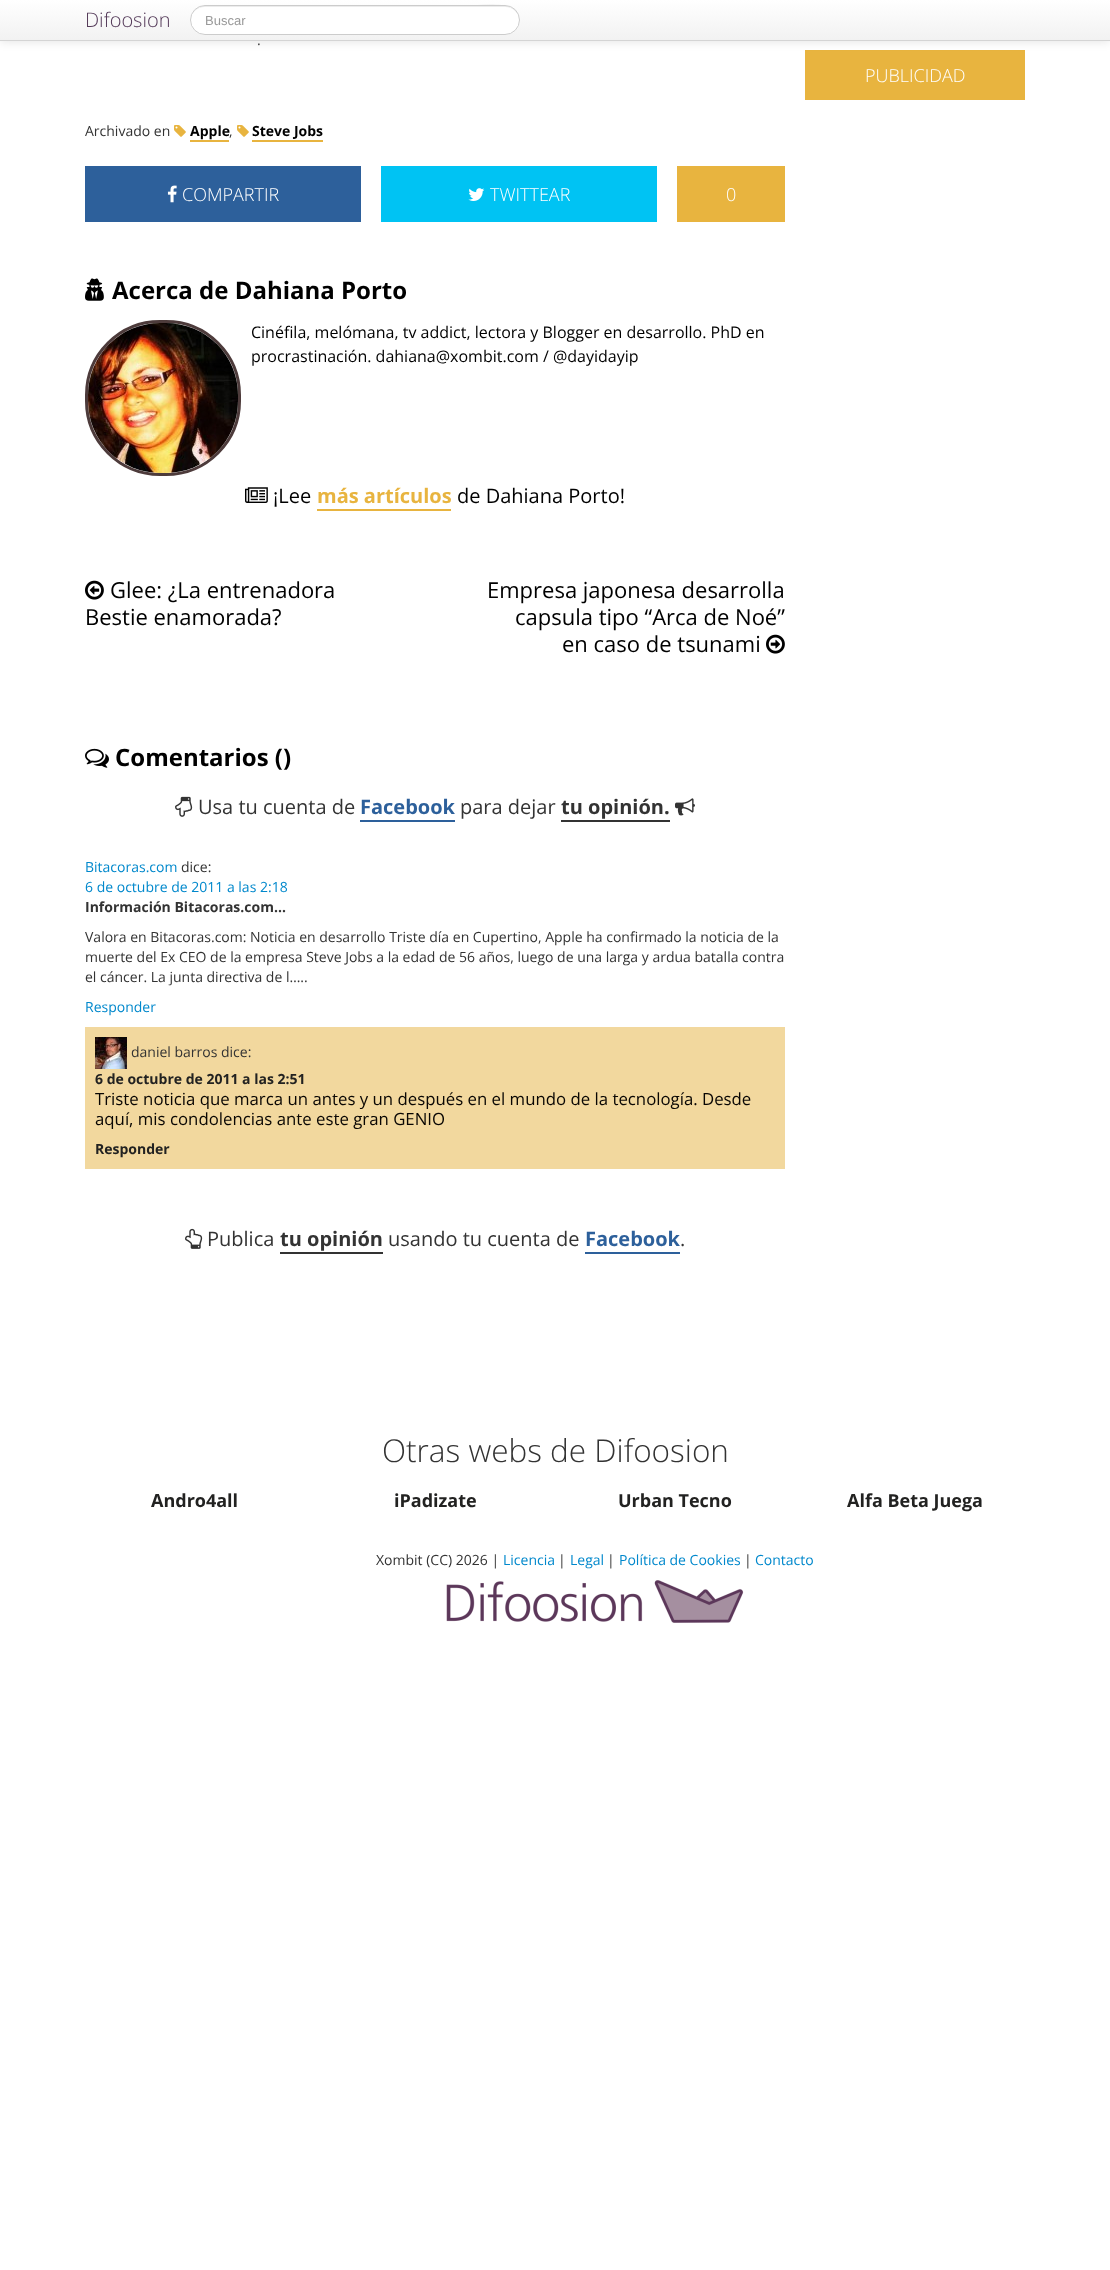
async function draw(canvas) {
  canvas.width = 1110
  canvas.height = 2270
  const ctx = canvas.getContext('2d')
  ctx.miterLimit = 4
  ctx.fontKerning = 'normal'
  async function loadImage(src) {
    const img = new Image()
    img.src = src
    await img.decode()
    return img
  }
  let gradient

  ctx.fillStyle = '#fff'
  ctx.fillRect(0, 0, 1110, 2270)
  ctx.fillStyle = '#e8b43f'
  ctx.fillRect(805, 50, 220, 50)
  ctx.fillStyle = '#0000001a'
  ctx.filter = 'blur(5px)'
  ctx.beginPath()
  ctx.rect(0, 1, 1110, 41)
  ctx.fill()
  ctx.filter = 'none'
  gradient = ctx.createLinearGradient(555, 0, 555, 40)
  gradient.addColorStop(0, '#fff')
  gradient.addColorStop(1, '#f2f2f2')
  ctx.fillStyle = gradient
  ctx.fillRect(0, 0, 1110, 40)
  ctx.fillStyle = '#d4d4d4'
  ctx.fillRect(0, 40, 1110, 1)
  ctx.font = '300 20px Open Sans'
  ctx.fillStyle = '#543a59'
  ctx.fillText('Difoosion', 85, 27)
  ctx.fillStyle = '#fff'
  ctx.beginPath()
  ctx.roundRect(190, 5, 330, 30, 15)
  ctx.fill()
  ctx.fillStyle = '#ececec'
  ctx.beginPath()
  ctx.moveTo(205, 7)
  ctx.lineTo(505, 7)
  ctx.bezierCurveTo(513, 7, 519, 13, 519, 20)
  ctx.bezierCurveTo(520, -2, 481, 6, 455, 6)
  ctx.lineTo(205, 6)
  ctx.bezierCurveTo(197, 6, 191, 13, 191, 20)
  ctx.bezierCurveTo(191, 13, 197, 7, 205, 7)
  ctx.closePath()
  ctx.fill()
  ctx.beginPath()
  ctx.roundRect(190.5, 5.5, 329, 29, 14.5)
  ctx.strokeStyle = '#ccc'
  ctx.stroke()
  ctx.font = '13px Liberation Sans'
  ctx.fillStyle = '#999'
  ctx.fillText('Buscar', 205, 25)
  ctx.font = '14px Open Sans'
  ctx.fillStyle = '#404040'
  ctx.fillText('.', 257, 45)
  ctx.fillStyle = '#333'
  ctx.fillText('Archivado en', 85, 136)
  ctx.drawImage(await loadImage('image0.png'), 174, 125, 12, 12)
  ctx.font = 'bold 14px Open Sans'
  ctx.fillStyle = '#000'
  ctx.fillText('Apple', 190, 136)
  ctx.fillStyle = '#e8b43f'
  ctx.fillRect(190, 140, 39, 2)
  ctx.font = '14px Open Sans'
  ctx.fillStyle = '#333'
  ctx.fillText(',', 229, 136)
  ctx.drawImage(await loadImage('image0.png'), 237, 125, 12, 12)
  ctx.font = 'bold 14px Open Sans'
  ctx.fillStyle = '#000'
  ctx.fillText('Steve Jobs', 252, 136)
  ctx.fillStyle = '#e8b43f'
  ctx.fillRect(252, 140, 71, 2)
  ctx.fillStyle = '#2d609b'
  ctx.fillRect(85, 166, 276, 56)
  ctx.drawImage(await loadImage('image1.png'), 167, 185, 10, 18)
  ctx.font = '300 18px Open Sans'
  ctx.fillStyle = '#fff'
  ctx.fillText('COMPARTIR', 182, 201)
  ctx.fillStyle = '#00c3f3'
  ctx.fillRect(381, 166, 276, 56)
  ctx.drawImage(await loadImage('image2.png'), 468, 188, 17, 13)
  ctx.fillStyle = '#fff'
  ctx.fillText('TWITTEAR', 490, 201)
  ctx.fillStyle = '#e8b43f'
  ctx.fillRect(677, 166, 108, 56)
  ctx.fillStyle = '#fff'
  ctx.fillText('0', 726, 201)
  ctx.drawImage(await loadImage('image3.png'), 85, 278, 19, 23)
  ctx.font = 'bold 24px Open Sans'
  ctx.fillStyle = '#000'
  ctx.fillText('Acerca de Dahiana Porto', 112, 299)
  ctx.beginPath()
  ctx.roundRect(86.5, 321.5, 153, 153, 73.5)
  ctx.strokeStyle = '#4d3b3b'
  ctx.lineWidth = 3
  ctx.stroke()
  ctx.drawImage(await loadImage('image4.png'), 88, 323, 150, 150)
  ctx.font = '16px Open Sans'
  ctx.fillText('Cinéfila, melómana, tv addict, lectora y Blogger en desarrollo. PhD en', 251, 338)
  ctx.fillText('procrastinación. dahiana@xombit.com / @dayidayip', 251, 362)
  ctx.drawImage(await loadImage('image5.png'), 245, 487, 23, 16)
  ctx.font = '20px Open Sans'
  ctx.fillText('¡Lee', 273, 503)
  ctx.font = 'bold 20px Open Sans'
  ctx.fillStyle = '#e8b43f'
  ctx.fillText('más artículos', 317, 503)
  ctx.fillRect(317, 509, 134, 2)
  ctx.font = '20px Open Sans'
  ctx.fillStyle = '#000'
  ctx.fillText('de Dahiana Porto!', 457, 503)
  ctx.drawImage(await loadImage('image6.png'), 85, 580, 19, 20)
  ctx.font = '22px Open Sans'
  ctx.fillText('Glee: ¿La entrenadora', 110, 598)
  ctx.fillText('Bestie enamorada?', 85, 625)
  ctx.fillText('Empresa japonesa desarrolla', 487, 598)
  ctx.fillText('capsula tipo “Arca de Noé”', 515, 625)
  ctx.fillText('en caso de tsunami', 562, 652)
  ctx.drawImage(await loadImage('image7.png'), 766, 634, 19, 20)
  ctx.drawImage(await loadImage('image8.png'), 85, 748, 24, 20)
  ctx.font = 'bold 24px Open Sans'
  ctx.fillText('Comentarios ()', 115, 766)
  ctx.drawImage(await loadImage('image9.png'), 175, 796, 18, 21)
  ctx.font = '20px Open Sans'
  ctx.fillStyle = '#333'
  ctx.fillText('Usa tu cuenta de', 198, 814)
  ctx.font = 'bold 20px Open Sans'
  ctx.fillStyle = '#2d609b'
  ctx.fillText('Facebook', 360, 814)
  ctx.fillRect(360, 820, 95, 2)
  ctx.font = '20px Open Sans'
  ctx.fillStyle = '#333'
  ctx.fillText('para dejar', 460, 814)
  ctx.font = 'bold 20px Open Sans'
  ctx.fillText('tu opinión.', 561, 814)
  ctx.fillRect(561, 820, 109, 2)
  ctx.drawImage(await loadImage('image10.png'), 675, 798, 20, 18)
  ctx.font = '14px Open Sans'
  ctx.fillStyle = '#08c'
  ctx.fillText('Bitacoras.com', 85, 872)
  ctx.fillStyle = '#333'
  ctx.fillText('dice:', 181, 872)
  ctx.fillStyle = '#08c'
  ctx.fillText('6 de octubre de 2011 a las 2:18', 85, 892)
  ctx.font = 'bold 14px Open Sans'
  ctx.fillStyle = '#333'
  ctx.fillText('Información Bitacoras.com…', 85, 912)
  ctx.font = '14px Open Sans'
  ctx.fillText('Valora en Bitacoras.com: Noticia en desarrollo Triste día en Cupertino, Apple ha confirmado la noticia de la', 85, 942)
  ctx.fillText('muerte del Ex CEO de la empresa Steve Jobs a la edad de 56 años, luego de una larga y ardua batalla contra', 85, 962)
  ctx.fillText('el cáncer. La junta directiva de l…..', 85, 982)
  ctx.fillStyle = '#08c'
  ctx.fillText('Responder', 85, 1012)
  ctx.fillStyle = '#f2d89e'
  ctx.fillRect(85, 1027, 700, 142)
  ctx.drawImage(await loadImage('image11.png'), 95, 1037, 32, 32)
  ctx.fillStyle = '#333'
  ctx.fillText('daniel barros dice:', 131, 1057)
  ctx.font = 'bold 14px Open Sans'
  ctx.fillStyle = '#222221'
  ctx.fillText('6 de octubre de 2011 a las 2:51', 95, 1084)
  ctx.font = '16.8px Open Sans'
  ctx.fillStyle = '#090603'
  ctx.fillText('Triste noticia que marca un antes y un después en el mundo de la tecnología. Desde', 95, 1105)
  ctx.fillText('aquí, mis condolencias ante este gran GENIO', 95, 1125)
  ctx.font = 'bold 14px Open Sans'
  ctx.fillStyle = '#222221'
  ctx.fillText('Responder', 95, 1154)
  ctx.drawImage(await loadImage('image12.png'), 185, 1228, 18, 21)
  ctx.font = '20px Open Sans'
  ctx.fillStyle = '#333'
  ctx.fillText('Publica', 207, 1246)
  ctx.font = 'bold 20px Open Sans'
  ctx.fillText('tu opinión', 280, 1246)
  ctx.fillRect(280, 1252, 103, 2)
  ctx.font = '20px Open Sans'
  ctx.fillText('usando tu cuenta de', 388, 1246)
  ctx.font = 'bold 20px Open Sans'
  ctx.fillStyle = '#2d609b'
  ctx.fillText('Facebook', 585, 1246)
  ctx.fillRect(585, 1252, 95, 2)
  ctx.font = '20px Open Sans'
  ctx.fillStyle = '#333'
  ctx.fillText('.', 680, 1246)
  ctx.font = '300 18px Open Sans'
  ctx.fillStyle = '#fff'
  ctx.fillText('PUBLICIDAD', 865, 82)
  ctx.font = '300 31.5px Open Sans'
  ctx.fillStyle = '#333'
  ctx.fillText('Otras webs de Difoosion', 382, 1462)
  ctx.font = 'bold 18px Open Sans'
  ctx.fillStyle = '#222221'
  ctx.fillText('Andro4all', 151, 1507)
  ctx.fillText('iPadizate', 394, 1507)
  ctx.fillText('Urban Tecno', 618, 1507)
  ctx.fillText('Alfa Beta Juega', 847, 1507)
  ctx.font = '14px Open Sans'
  ctx.fillStyle = '#333'
  ctx.fillText('Xombit (CC) 2026 |', 376, 1565)
  ctx.fillStyle = '#08c'
  ctx.fillText('Licencia', 503, 1565)
  ctx.fillStyle = '#333'
  ctx.fillText('|', 558, 1565)
  ctx.fillStyle = '#08c'
  ctx.fillText('Legal', 570, 1565)
  ctx.fillStyle = '#333'
  ctx.fillText('|', 607, 1565)
  ctx.fillStyle = '#08c'
  ctx.fillText('Política de Cookies', 619, 1565)
  ctx.fillStyle = '#333'
  ctx.fillText('|', 744, 1565)
  ctx.fillStyle = '#08c'
  ctx.fillText('Contacto', 755, 1565)
  ctx.drawImage(await loadImage('image13.png'), 446, 1580, 298, 43)
}

draw(document.querySelector('canvas'))
